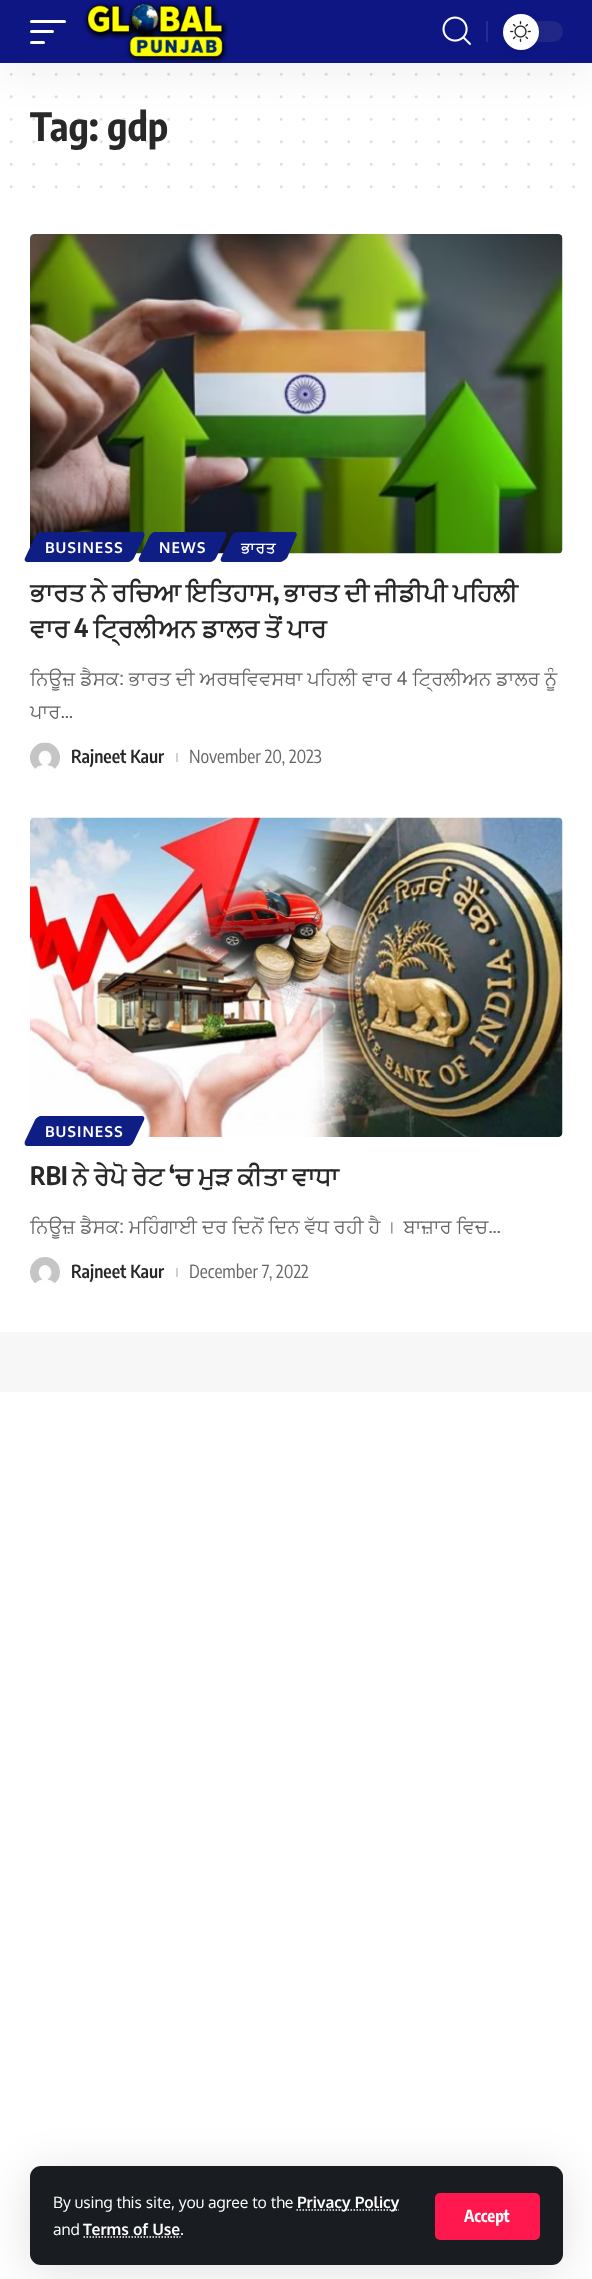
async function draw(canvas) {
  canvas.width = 592
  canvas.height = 2279
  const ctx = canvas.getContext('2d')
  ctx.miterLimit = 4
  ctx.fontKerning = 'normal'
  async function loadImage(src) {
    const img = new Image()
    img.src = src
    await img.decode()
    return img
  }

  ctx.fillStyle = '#fff'
  ctx.fillRect(0, 0, 592, 2279)
  ctx.beginPath()
  ctx.moveTo(11.2, 74.2)
  ctx.lineTo(574, 74.2)
  ctx.strokeStyle = '#dfdfdf'
  ctx.lineWidth = 3
  ctx.lineCap = 'round'
  ctx.setLineDash([0, 22.5])
  ctx.stroke()
  ctx.beginPath()
  ctx.moveTo(11.2, 96.8)
  ctx.lineTo(574, 96.8)
  ctx.stroke()
  ctx.font = 'bold 39px Encode Sans Condensed'
  ctx.fillStyle = '#282828'
  ctx.fillText('Tag: gdp', 30, 141)
  ctx.beginPath()
  ctx.moveTo(11.2, 119.2)
  ctx.lineTo(574, 119.2)
  ctx.strokeStyle = '#28282826'
  ctx.stroke()
  ctx.beginPath()
  ctx.moveTo(11.2, 141.8)
  ctx.lineTo(574, 141.8)
  ctx.stroke()
  ctx.beginPath()
  ctx.moveTo(11.2, 164.2)
  ctx.lineTo(574, 164.2)
  ctx.strokeStyle = '#dfdfdf'
  ctx.stroke()
  ctx.beginPath()
  ctx.moveTo(11.2, 186.8)
  ctx.lineTo(574, 186.8)
  ctx.stroke()
  ctx.drawImage(await loadImage('image0.png'), 30, 234, 533, 320)
  ctx.fillStyle = '#0e1e84'
  ctx.beginPath()
  ctx.moveTo(41, 532)
  ctx.lineTo(142, 532)
  ctx.bezierCurveTo(144, 532, 145, 534, 144, 537)
  ctx.lineTo(134, 558)
  ctx.bezierCurveTo(133, 560, 130, 562, 128, 562)
  ctx.lineTo(28, 562)
  ctx.bezierCurveTo(25, 562, 24, 560, 25, 558)
  ctx.lineTo(35, 537)
  ctx.bezierCurveTo(36, 534, 39, 532, 41, 532)
  ctx.closePath()
  ctx.fill()
  ctx.letterSpacing = '1px'
  ctx.font = 'bold 15px Oxygen'
  ctx.fillStyle = '#fff'
  ctx.fillText('BUSINESS', 45, 553)
  ctx.fillStyle = '#0e1e84'
  ctx.beginPath()
  ctx.moveTo(155, 532)
  ctx.lineTo(224, 532)
  ctx.bezierCurveTo(226, 532, 227, 534, 226, 537)
  ctx.lineTo(216, 558)
  ctx.bezierCurveTo(215, 560, 212, 562, 210, 562)
  ctx.lineTo(141, 562)
  ctx.bezierCurveTo(139, 562, 138, 560, 139, 558)
  ctx.lineTo(149, 537)
  ctx.bezierCurveTo(150, 534, 153, 532, 155, 532)
  ctx.closePath()
  ctx.fill()
  ctx.fillStyle = '#fff'
  ctx.fillText('NEWS', 159, 553)
  ctx.fillStyle = '#0e1e84'
  ctx.beginPath()
  ctx.moveTo(237, 532)
  ctx.lineTo(294, 532)
  ctx.bezierCurveTo(296, 532, 298, 534, 296, 537)
  ctx.lineTo(287, 558)
  ctx.bezierCurveTo(285, 560, 282, 562, 280, 562)
  ctx.lineTo(223, 562)
  ctx.bezierCurveTo(221, 562, 220, 560, 221, 558)
  ctx.lineTo(231, 537)
  ctx.bezierCurveTo(232, 534, 235, 532, 237, 532)
  ctx.closePath()
  ctx.fill()
  ctx.font = 'bold 15px FreeSans'
  ctx.fillStyle = '#fff'
  ctx.fillText('ਭਾਰਤ', 241, 553)
  ctx.letterSpacing = '0px'
  ctx.wordSpacing = '-1px'
  ctx.font = 'bold 25.5px FreeSans'
  ctx.fillStyle = '#282828'
  ctx.fillText('ਭਾਰਤ ਨੇ ਰਚਿਆ ਇਤਿਹਾਸ', 30, 601)
  ctx.wordSpacing = '0px'
  ctx.font = 'bold 25.5px Encode Sans Condensed'
  ctx.fillText(',', 273, 601)
  ctx.wordSpacing = '-1px'
  ctx.font = 'bold 25.5px FreeSans'
  ctx.fillText('ਭਾਰਤ ਦੀ ਜੀਡੀਪੀ ਪਹਿਲੀ', 284, 601)
  ctx.wordSpacing = '0px'
  ctx.fillText('ਵਾਰ', 30, 637)
  ctx.font = 'bold 25.5px Encode Sans Condensed'
  ctx.fillText('4', 74, 637)
  ctx.wordSpacing = '-0.5px'
  ctx.font = 'bold 25.5px FreeSans'
  ctx.fillText('ਟ੍ਰਿਲੀਅਨ ਡਾਲਰ ਤੋਂ ਪਾਰ', 93, 637)
  ctx.wordSpacing = '0px'
  ctx.font = '19.5px FreeSans'
  ctx.fillStyle = '#666'
  ctx.fillText('ਨਿਊਜ਼ ਡੈਸਕ: ਭਾਰਤ ਦੀ ਅਰਥਵਿਵਸਥਾ ਪਹਿਲੀ ਵਾਰ 4 ਟ੍ਰਿਲੀਅਨ ਡਾਲਰ ਨੂੰ', 30, 685)
  ctx.fillText('ਪਾਰ…', 30, 718)
  ctx.drawImage(await loadImage('image1.png'), 30, 742, 30, 27)
  ctx.font = '600 18px Encode Sans Condensed'
  ctx.fillStyle = '#282828'
  ctx.fillText('Rajneet Kaur', 71, 763)
  ctx.fillStyle = '#d1d1d1'
  ctx.fillRect(176, 753, 2, 9)
  ctx.font = '18px Encode Sans Condensed'
  ctx.fillStyle = '#666'
  ctx.fillText('November 20, 2023', 189, 763)
  ctx.drawImage(await loadImage('image2.png'), 30, 817, 533, 320)
  ctx.fillStyle = '#0e1e84'
  ctx.beginPath()
  ctx.moveTo(41, 1116)
  ctx.lineTo(142, 1116)
  ctx.bezierCurveTo(144, 1116, 145, 1118, 144, 1120)
  ctx.lineTo(134, 1141)
  ctx.bezierCurveTo(133, 1144, 130, 1146, 128, 1146)
  ctx.lineTo(28, 1146)
  ctx.bezierCurveTo(25, 1146, 24, 1144, 25, 1141)
  ctx.lineTo(35, 1120)
  ctx.bezierCurveTo(36, 1118, 39, 1116, 41, 1116)
  ctx.closePath()
  ctx.fill()
  ctx.letterSpacing = '1px'
  ctx.font = 'bold 15px Oxygen'
  ctx.fillStyle = '#fff'
  ctx.fillText('BUSINESS', 45, 1137)
  ctx.letterSpacing = '0px'
  ctx.font = 'bold 25.5px Encode Sans Condensed'
  ctx.fillStyle = '#282828'
  ctx.fillText('RBI', 30, 1185)
  ctx.wordSpacing = '-0.5px'
  ctx.font = 'bold 25.5px FreeSans'
  ctx.fillText('ਨੇ ਰੇਪੋ ਰੇਟ', 72, 1185)
  ctx.wordSpacing = '0px'
  ctx.font = 'bold 25.5px Encode Sans Condensed'
  ctx.fillText('‘', 169, 1185)
  ctx.wordSpacing = '-0.5px'
  ctx.font = 'bold 25.5px FreeSans'
  ctx.fillText('ਚ ਮੁੜ ਕੀਤਾ ਵਾਧਾ', 175, 1185)
  ctx.wordSpacing = '0px'
  ctx.font = '19.5px FreeSans'
  ctx.fillStyle = '#666'
  ctx.fillText('ਨਿਊਜ਼ ਡੈਸਕ: ਮਹਿੰਗਾਈ ਦਰ ਦਿਨੋਂ ਦਿਨ ਵੱਧ ਰਹੀ ਹੈ । ਬਾਜ਼ਾਰ ਵਿਚ…', 30, 1233)
  ctx.drawImage(await loadImage('image3.png'), 30, 1257, 30, 27)
  ctx.font = '600 18px Encode Sans Condensed'
  ctx.fillStyle = '#282828'
  ctx.fillText('Rajneet Kaur', 71, 1278)
  ctx.fillStyle = '#d1d1d1'
  ctx.fillRect(176, 1268, 2, 9)
  ctx.font = '18px Encode Sans Condensed'
  ctx.fillStyle = '#666'
  ctx.fillText('December 7, 2022', 189, 1278)
  ctx.fillStyle = '#f7f7f7'
  ctx.fillRect(0, 1332, 592, 60)
  ctx.fillStyle = '#00000012'
  ctx.filter = 'blur(22.5px)'
  ctx.beginPath()
  ctx.rect(0, 6, 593, 63)
  ctx.fill()
  ctx.filter = 'none'
  ctx.fillStyle = '#0e1684'
  ctx.fillRect(0, 0, 592, 63)
  ctx.fillStyle = '#fff'
  ctx.beginPath()
  ctx.roundRect(30, 20, 36, 3, 1.5)
  ctx.fill()
  ctx.beginPath()
  ctx.roundRect(30, 30, 24, 3, 1.5)
  ctx.fill()
  ctx.beginPath()
  ctx.roundRect(30, 41, 15, 3, 1.5)
  ctx.fill()
  ctx.drawImage(await loadImage('image4.png'), 83, 0, 145, 63)
  ctx.drawImage(await loadImage('image5.png'), 442, 16, 29, 29)
  ctx.fillStyle = '#262d90'
  ctx.fillRect(486, 21, 2, 21)
  ctx.fillStyle = '#202785'
  ctx.beginPath()
  ctx.roundRect(503, 21, 60, 21, 10.5)
  ctx.fill()
  ctx.fillStyle = '#0000001f'
  ctx.filter = 'blur(3px)'
  ctx.beginPath()
  ctx.roundRect(503, 15, 36, 36, 18)
  ctx.fill()
  ctx.filter = 'none'
  ctx.fillStyle = '#fff'
  ctx.beginPath()
  ctx.arc(521, 32, 18, 0, 2 * Math.PI)
  ctx.fill()
  ctx.drawImage(await loadImage('image6.png'), 510, 21, 21, 21)
  ctx.fillStyle = '#0000001f'
  ctx.filter = 'blur(22.5px)'
  ctx.beginPath()
  ctx.roundRect(30, 2172, 533, 99, 11)
  ctx.fill()
  ctx.filter = 'none'
  ctx.fillStyle = '#191c20'
  ctx.beginPath()
  ctx.roundRect(30, 2166, 533, 99, 11)
  ctx.fill()
  ctx.font = '15.75px Oxygen'
  ctx.fillStyle = '#fff'
  ctx.fillText('By using this site, you agree to the', 53, 2208)
  ctx.beginPath()
  ctx.moveTo(296.5, 2210)
  ctx.lineTo(399, 2210)
  ctx.strokeStyle = '#fff'
  ctx.lineWidth = 1.5
  ctx.lineCap = 'butt'
  ctx.setLineDash([1.5, 1.5])
  ctx.stroke()
  ctx.font = 'bold 15.75px Oxygen'
  ctx.fillText('Privacy Policy', 297, 2208)
  ctx.font = '15.75px Oxygen'
  ctx.fillText('and', 53, 2235)
  ctx.font = 'bold 15.75px Oxygen'
  ctx.fillText('Terms of Use', 83, 2235)
  ctx.beginPath()
  ctx.moveTo(83.5, 2237)
  ctx.lineTo(180.5, 2237)
  ctx.stroke()
  ctx.font = '15.75px Oxygen'
  ctx.fillText('.', 180, 2235)
  ctx.fillStyle = '#ff184e'
  ctx.beginPath()
  ctx.roundRect(435, 2193, 105, 47, 5)
  ctx.fill()
  ctx.font = 'bold 16.5px Encode Sans Condensed'
  ctx.fillStyle = '#fff'
  ctx.fillText('Accept', 464, 2222)
}

draw(document.querySelector('canvas'))
